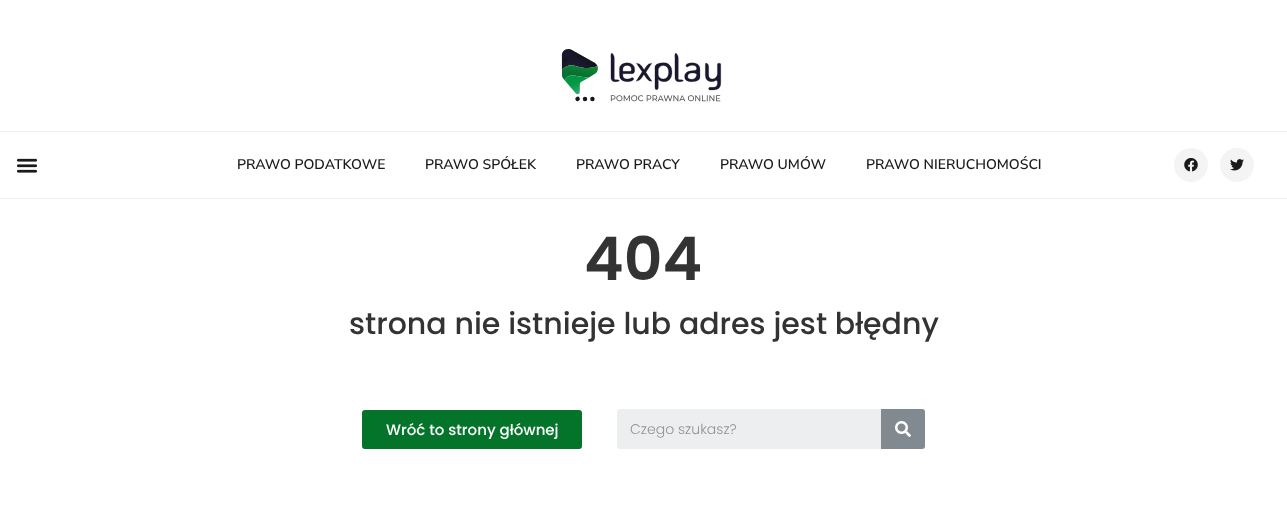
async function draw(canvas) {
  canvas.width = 1287
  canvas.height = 514
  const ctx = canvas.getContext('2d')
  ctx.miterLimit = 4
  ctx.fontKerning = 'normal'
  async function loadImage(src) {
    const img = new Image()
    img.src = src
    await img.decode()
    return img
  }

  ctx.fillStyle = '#fff'
  ctx.fillRect(0, 0, 1287, 514)
  ctx.drawImage(await loadImage('image0.png'), 561, 49, 161, 53)
  ctx.fillStyle = '#eee'
  ctx.fillRect(0, 131, 1287, 1)
  ctx.fillRect(0, 198, 1287, 1)
  ctx.drawImage(await loadImage('image1.png'), 16, 158, 22, 15)
  ctx.font = '600 14px Nunito Sans'
  ctx.fillStyle = '#1a1a1a'
  ctx.fillText('PRAWO PODATKOWE', 237, 169)
  ctx.fillText('PRAWO SPÓŁEK', 425, 169)
  ctx.fillText('PRAWO PRACY', 576, 169)
  ctx.fillText('PRAWO UMÓW', 720, 169)
  ctx.fillText('PRAWO NIERUCHOMOŚCI', 866, 169)
  ctx.fillStyle = '#f4f4f4'
  ctx.beginPath()
  ctx.arc(1191, 165, 17, 0, 2 * Math.PI)
  ctx.fill()
  ctx.drawImage(await loadImage('image2.png'), 1184, 158, 14, 14)
  ctx.beginPath()
  ctx.arc(1237, 165, 17, 0, 2 * Math.PI)
  ctx.fill()
  ctx.drawImage(await loadImage('image3.png'), 1230, 159, 14, 12)
  ctx.font = '600 60px Poppins'
  ctx.fillStyle = '#333'
  ctx.fillText('404', 584, 280)
  ctx.font = '500 30px Poppins'
  ctx.fillText('strona nie istnieje lub adres jest błędny', 349, 334)
  ctx.fillStyle = '#05742b'
  ctx.beginPath()
  ctx.roundRect(362, 410, 220, 39, 3)
  ctx.fill()
  ctx.font = '500 15px Poppins'
  ctx.fillStyle = '#fff'
  ctx.fillText('Wróć to strony głównej', 386, 435)
  ctx.fillStyle = '#eceeef'
  ctx.beginPath()
  ctx.roundRect(617, 409, 308, 40, 3)
  ctx.fill()
  ctx.font = '300 14px Poppins'
  ctx.fillStyle = '#919597'
  ctx.fillText('Czego szukasz?', 630, 434)
  ctx.fillStyle = '#818a91'
  ctx.beginPath()
  ctx.roundRect(881, 409, 44, 40, [0, 3, 3, 0])
  ctx.fill()
  ctx.drawImage(await loadImage('image4.png'), 895, 421, 16, 16)
}

draw(document.querySelector('canvas'))
